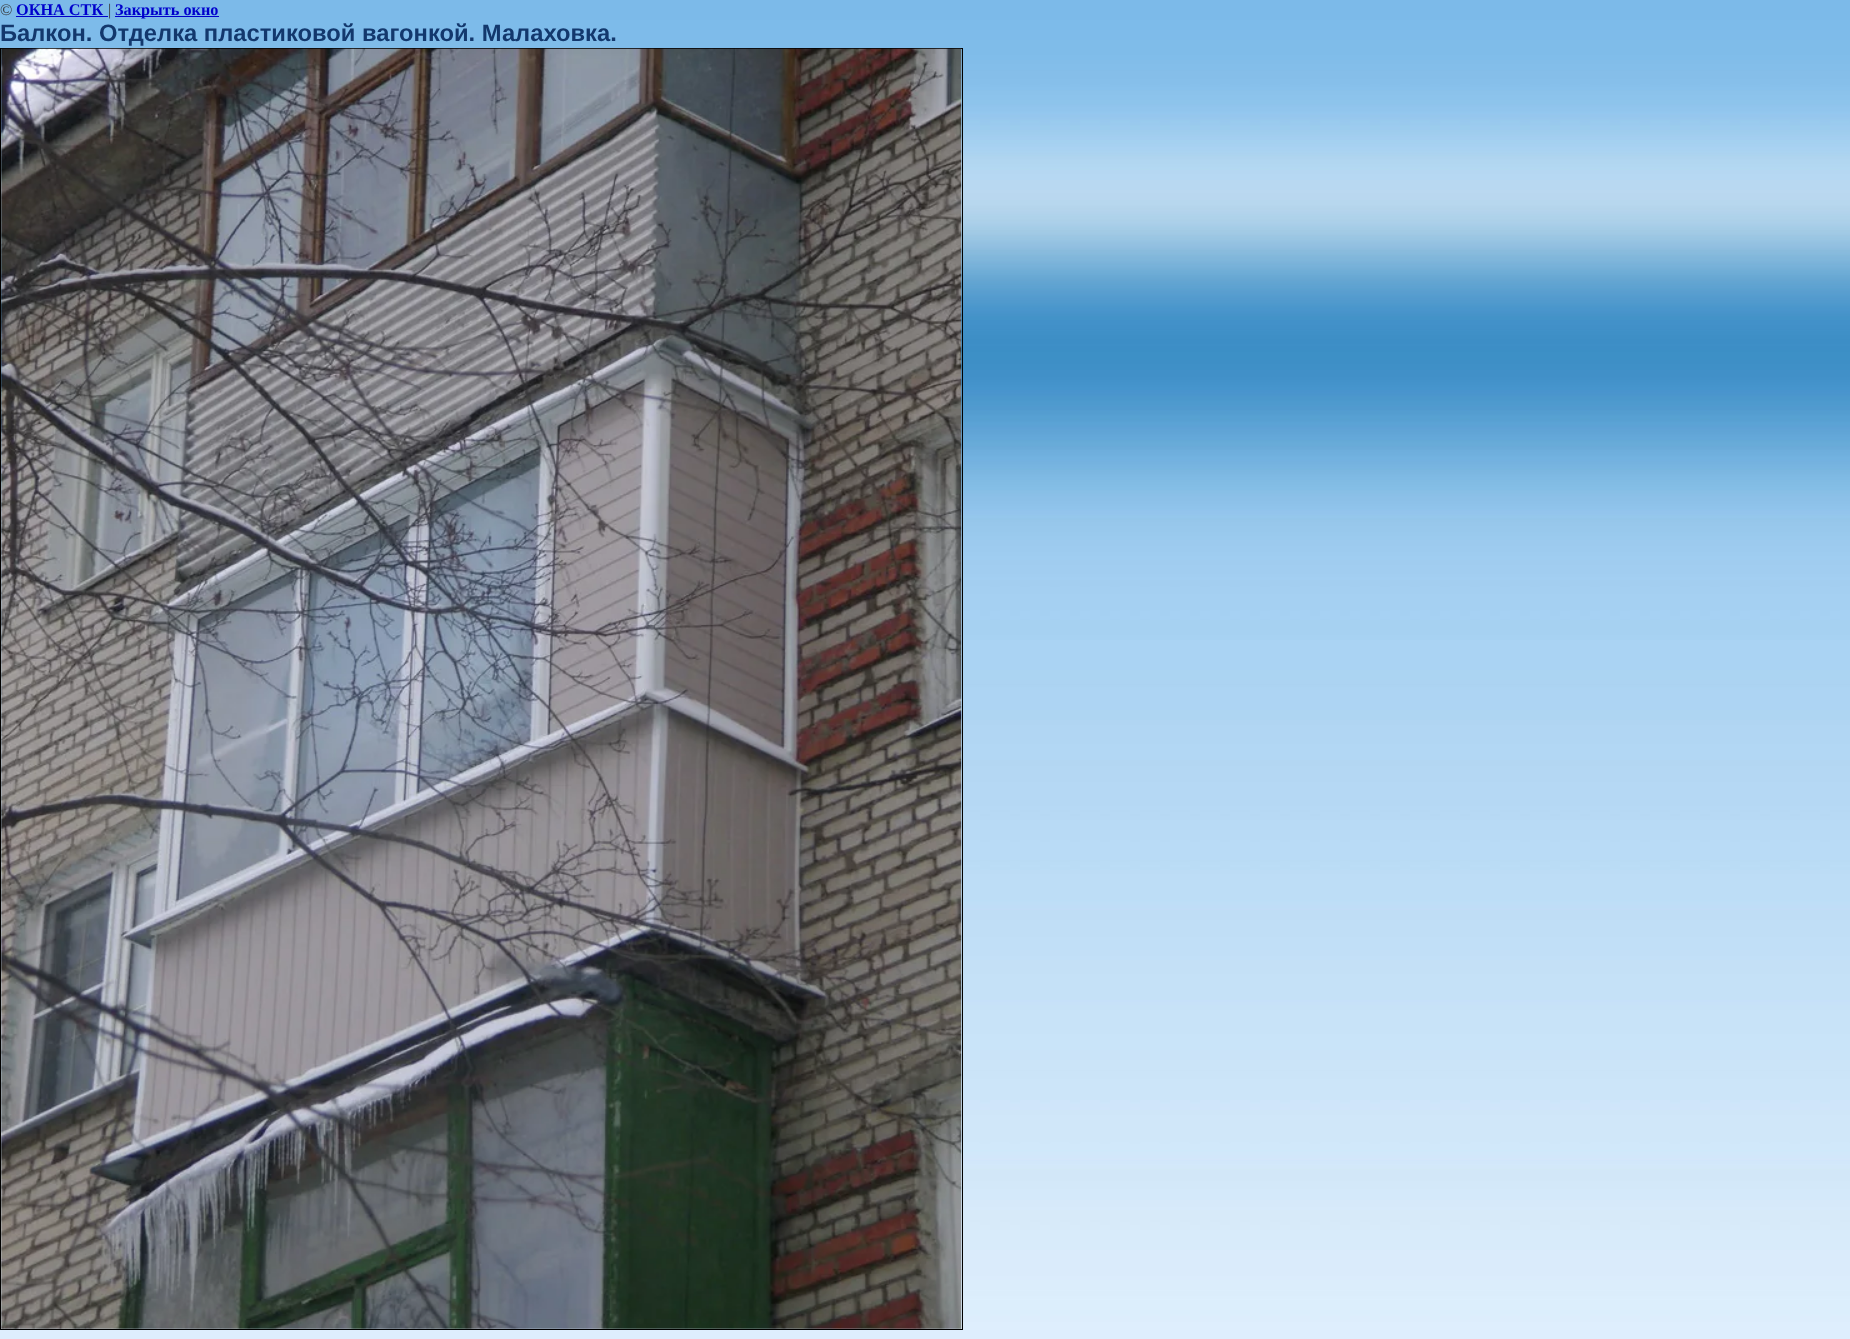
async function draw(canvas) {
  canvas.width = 1850
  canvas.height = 1339
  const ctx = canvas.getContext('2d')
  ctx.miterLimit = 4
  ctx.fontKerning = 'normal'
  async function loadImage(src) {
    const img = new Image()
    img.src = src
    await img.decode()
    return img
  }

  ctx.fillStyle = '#fff'
  ctx.fillRect(0, 0, 1850, 1339)
  ctx.drawImage(await loadImage('image0.png'), 0, 0, 1850, 1339)
  ctx.font = '16.25px Liberation Serif'
  ctx.fillStyle = '#383838'
  ctx.fillText('©', 0, 15)
  ctx.font = 'bold 16.25px Liberation Serif'
  ctx.fillStyle = '#00c'
  ctx.fillText('ОКНА СТК', 16, 15)
  ctx.fillRect(16, 16, 92, 1)
  ctx.font = '16.25px Liberation Serif'
  ctx.fillStyle = '#383838'
  ctx.fillText('|', 108, 15)
  ctx.fillStyle = '#00c'
  ctx.fillRect(115, 16, 104, 1)
  ctx.font = 'bold 16.25px Liberation Serif'
  ctx.fillText('Закрыть окно', 115, 15)
  ctx.font = 'bold 23.75px Liberation Sans'
  ctx.fillStyle = '#13386d'
  ctx.fillText('Балкон. Отделка пластиковой вагонкой. Малаховка.', 0, 41)
  ctx.strokeStyle = '#000'
  ctx.strokeRect(0.5, 48.5, 962, 1281)
  ctx.drawImage(await loadImage('image1.png'), 1, 48, 961, 1281)
}

draw(document.querySelector('canvas'))
